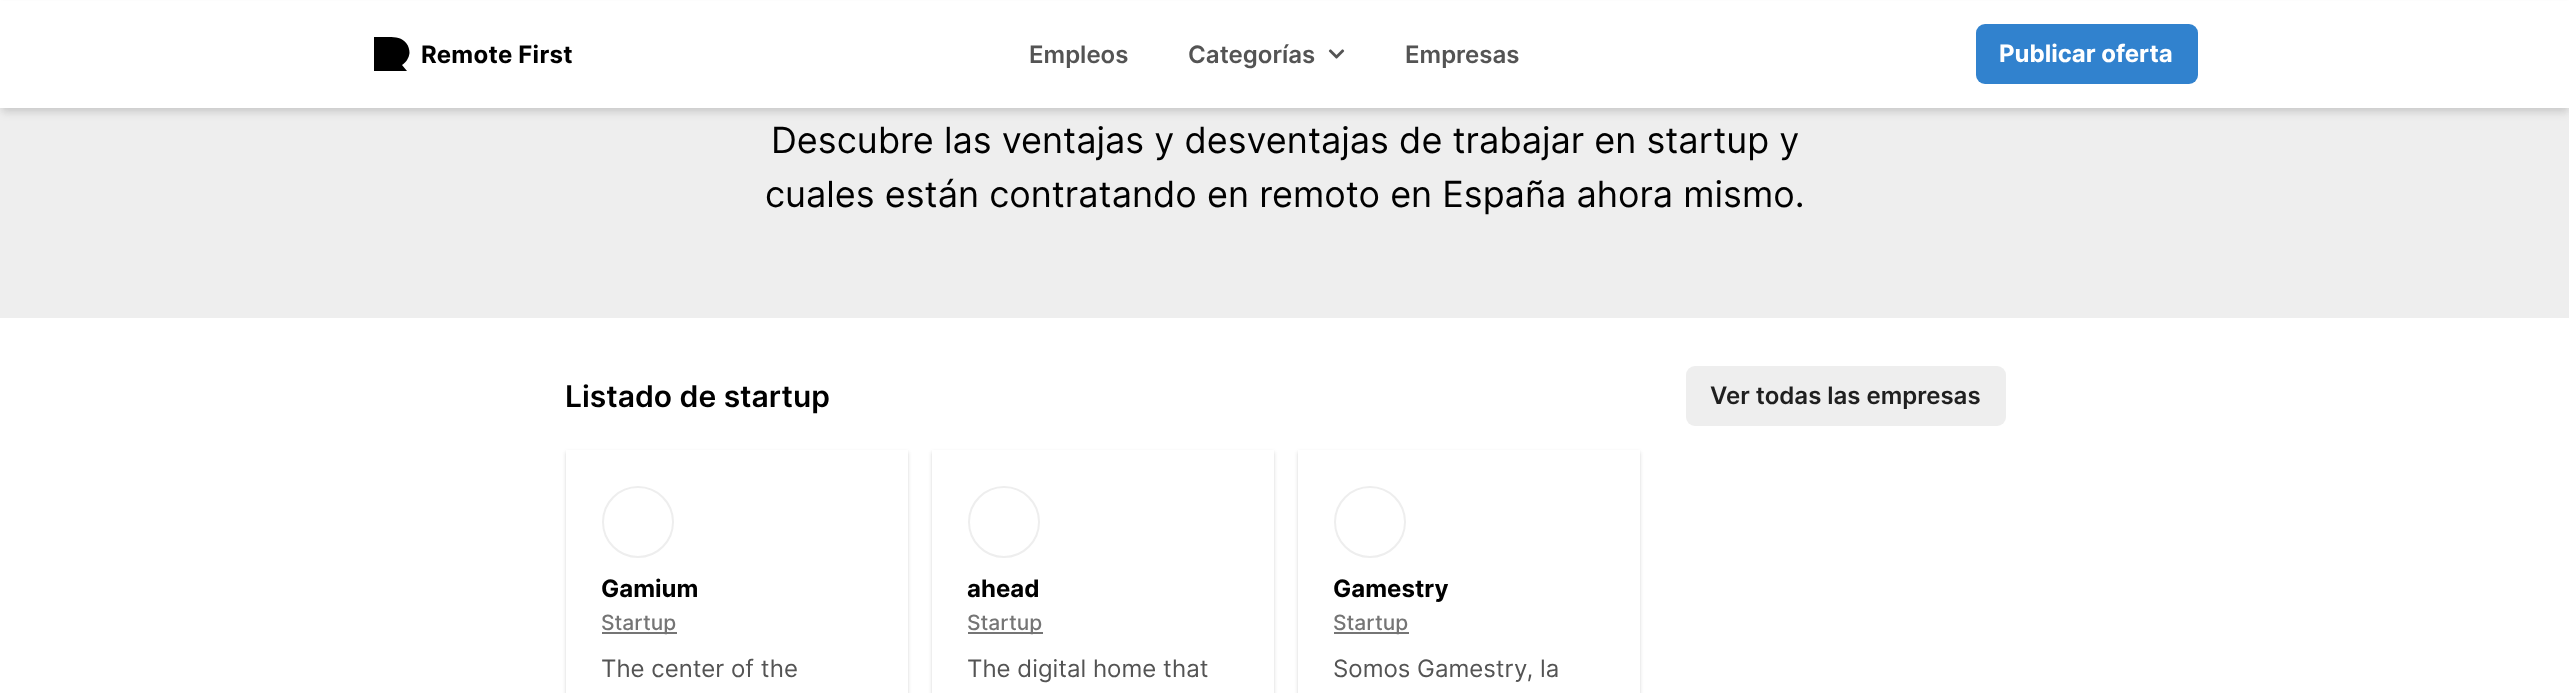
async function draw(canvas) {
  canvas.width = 2569
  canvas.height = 693
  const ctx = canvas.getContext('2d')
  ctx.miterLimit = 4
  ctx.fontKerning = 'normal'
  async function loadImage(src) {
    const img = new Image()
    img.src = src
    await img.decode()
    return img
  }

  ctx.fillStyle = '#fff'
  ctx.fillRect(0, 0, 2569, 693)
  ctx.fillStyle = '#eee'
  ctx.fillRect(0, 108, 2569, 210)
  ctx.fillStyle = '#0000000f'
  ctx.filter = 'blur(3px)'
  ctx.beginPath()
  ctx.rect(2, 5, 2566, 105)
  ctx.fill()
  ctx.filter = 'none'
  ctx.fillStyle = '#0000001a'
  ctx.filter = 'blur(4.5px)'
  ctx.beginPath()
  ctx.rect(2, 8, 2566, 105)
  ctx.fill()
  ctx.filter = 'none'
  ctx.fillStyle = '#fff'
  ctx.fillRect(0, 1, 2569, 107)
  ctx.save()
  ctx.beginPath()
  ctx.rect(374, 36, 36, 36)
  ctx.clip()
  ctx.fillStyle = '#000'
  ctx.beginPath()
  ctx.moveTo(402, 65)
  ctx.bezierCurveTo(406, 62.5, 409, 58, 409.5, 53)
  ctx.bezierCurveTo(409.5, 49.5, 408.5, 46, 406.5, 43.5)
  ctx.bezierCurveTo(401.5, 36.5, 393.5, 37, 386, 37)
  ctx.lineTo(373.5, 37)
  ctx.lineTo(373.5, 71)
  ctx.lineTo(407, 71)
  ctx.closePath()
  ctx.fill('evenodd')
  ctx.restore()
  ctx.letterSpacing = '0.25px'
  ctx.font = 'bold 24px Inter'
  ctx.fillStyle = '#000'
  ctx.fillText('Remote First', 421, 63)
  ctx.letterSpacing = '0px'
  ctx.font = '600 24px Inter'
  ctx.fillStyle = '#545454'
  ctx.fillText('Empleos', 1029, 63)
  ctx.fillText('Categorías', 1188, 63)
  ctx.drawImage(await loadImage('image0.png'), 1328, 49, 17, 10)
  ctx.fillText('Empresas', 1405, 63)
  ctx.fillStyle = '#3182ce'
  ctx.beginPath()
  ctx.roundRect(1976, 24, 222, 60, 9)
  ctx.fill()
  ctx.font = 'bold 24px Inter'
  ctx.fillStyle = '#fff'
  ctx.fillText('Publicar oferta', 1999, 62)
  ctx.font = '36px Inter'
  ctx.fillStyle = '#000'
  ctx.fillText('Descubre las ventajas y desventajas de trabajar en startup y', 771, 153)
  ctx.fillText('cuales están contratando en remoto en España ahora mismo.', 765, 207)
  ctx.font = '600 30px Inter'
  ctx.fillText('Listado de startup', 565, 407)
  ctx.fillStyle = '#eee'
  ctx.beginPath()
  ctx.roundRect(1686, 366, 320, 60, 9)
  ctx.fill()
  ctx.font = '600 24px Inter'
  ctx.fillStyle = '#1f1f1f'
  ctx.fillText('Ver todas las empresas', 1710, 404)
  ctx.fillStyle = '#0000000f'
  ctx.filter = 'blur(1.5px)'
  ctx.beginPath()
  ctx.rect(566, 452, 342, 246)
  ctx.fill()
  ctx.filter = 'none'
  ctx.fillStyle = '#0000001a'
  ctx.filter = 'blur(2px)'
  ctx.beginPath()
  ctx.rect(566, 452, 342, 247)
  ctx.fill()
  ctx.filter = 'none'
  ctx.fillStyle = '#fff'
  ctx.fillRect(566, 450, 342, 243)
  ctx.beginPath()
  ctx.arc(638, 522, 35, 0, 2 * Math.PI)
  ctx.strokeStyle = '#eee'
  ctx.lineWidth = 2
  ctx.stroke()
  ctx.font = 'bold 24px Inter'
  ctx.fillStyle = '#000'
  ctx.fillText('Gamium', 601, 597)
  ctx.fillStyle = '#757575'
  ctx.fillRect(602, 632, 75, 2)
  ctx.font = '500 21px Inter'
  ctx.fillText('Startup', 601, 630)
  ctx.font = '24px Inter'
  ctx.fillStyle = '#545454'
  ctx.fillText('The center of the', 601, 677)
  ctx.fillStyle = '#0000000f'
  ctx.filter = 'blur(1.5px)'
  ctx.beginPath()
  ctx.rect(932, 452, 342, 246)
  ctx.fill()
  ctx.filter = 'none'
  ctx.fillStyle = '#0000001a'
  ctx.filter = 'blur(2px)'
  ctx.beginPath()
  ctx.rect(932, 452, 342, 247)
  ctx.fill()
  ctx.filter = 'none'
  ctx.fillStyle = '#fff'
  ctx.fillRect(932, 450, 342, 243)
  ctx.beginPath()
  ctx.arc(1004, 522, 35, 0, 2 * Math.PI)
  ctx.stroke()
  ctx.font = 'bold 24px Inter'
  ctx.fillStyle = '#000'
  ctx.fillText('ahead', 967, 597)
  ctx.fillStyle = '#757575'
  ctx.fillRect(968, 632, 75, 2)
  ctx.font = '500 21px Inter'
  ctx.fillText('Startup', 967, 630)
  ctx.font = '24px Inter'
  ctx.fillStyle = '#545454'
  ctx.fillText('The digital home that', 967, 677)
  ctx.fillStyle = '#0000000f'
  ctx.filter = 'blur(1.5px)'
  ctx.beginPath()
  ctx.rect(1298, 452, 342, 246)
  ctx.fill()
  ctx.filter = 'none'
  ctx.fillStyle = '#0000001a'
  ctx.filter = 'blur(2px)'
  ctx.beginPath()
  ctx.rect(1298, 452, 342, 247)
  ctx.fill()
  ctx.filter = 'none'
  ctx.fillStyle = '#fff'
  ctx.fillRect(1298, 450, 342, 243)
  ctx.beginPath()
  ctx.arc(1370, 522, 35, 0, 2 * Math.PI)
  ctx.stroke()
  ctx.font = 'bold 24px Inter'
  ctx.fillStyle = '#000'
  ctx.fillText('Gamestry', 1333, 597)
  ctx.fillStyle = '#757575'
  ctx.fillRect(1334, 632, 75, 2)
  ctx.font = '500 21px Inter'
  ctx.fillText('Startup', 1333, 630)
  ctx.font = '24px Inter'
  ctx.fillStyle = '#545454'
  ctx.fillText('Somos Gamestry, la', 1333, 677)
}

draw(document.querySelector('canvas'))
